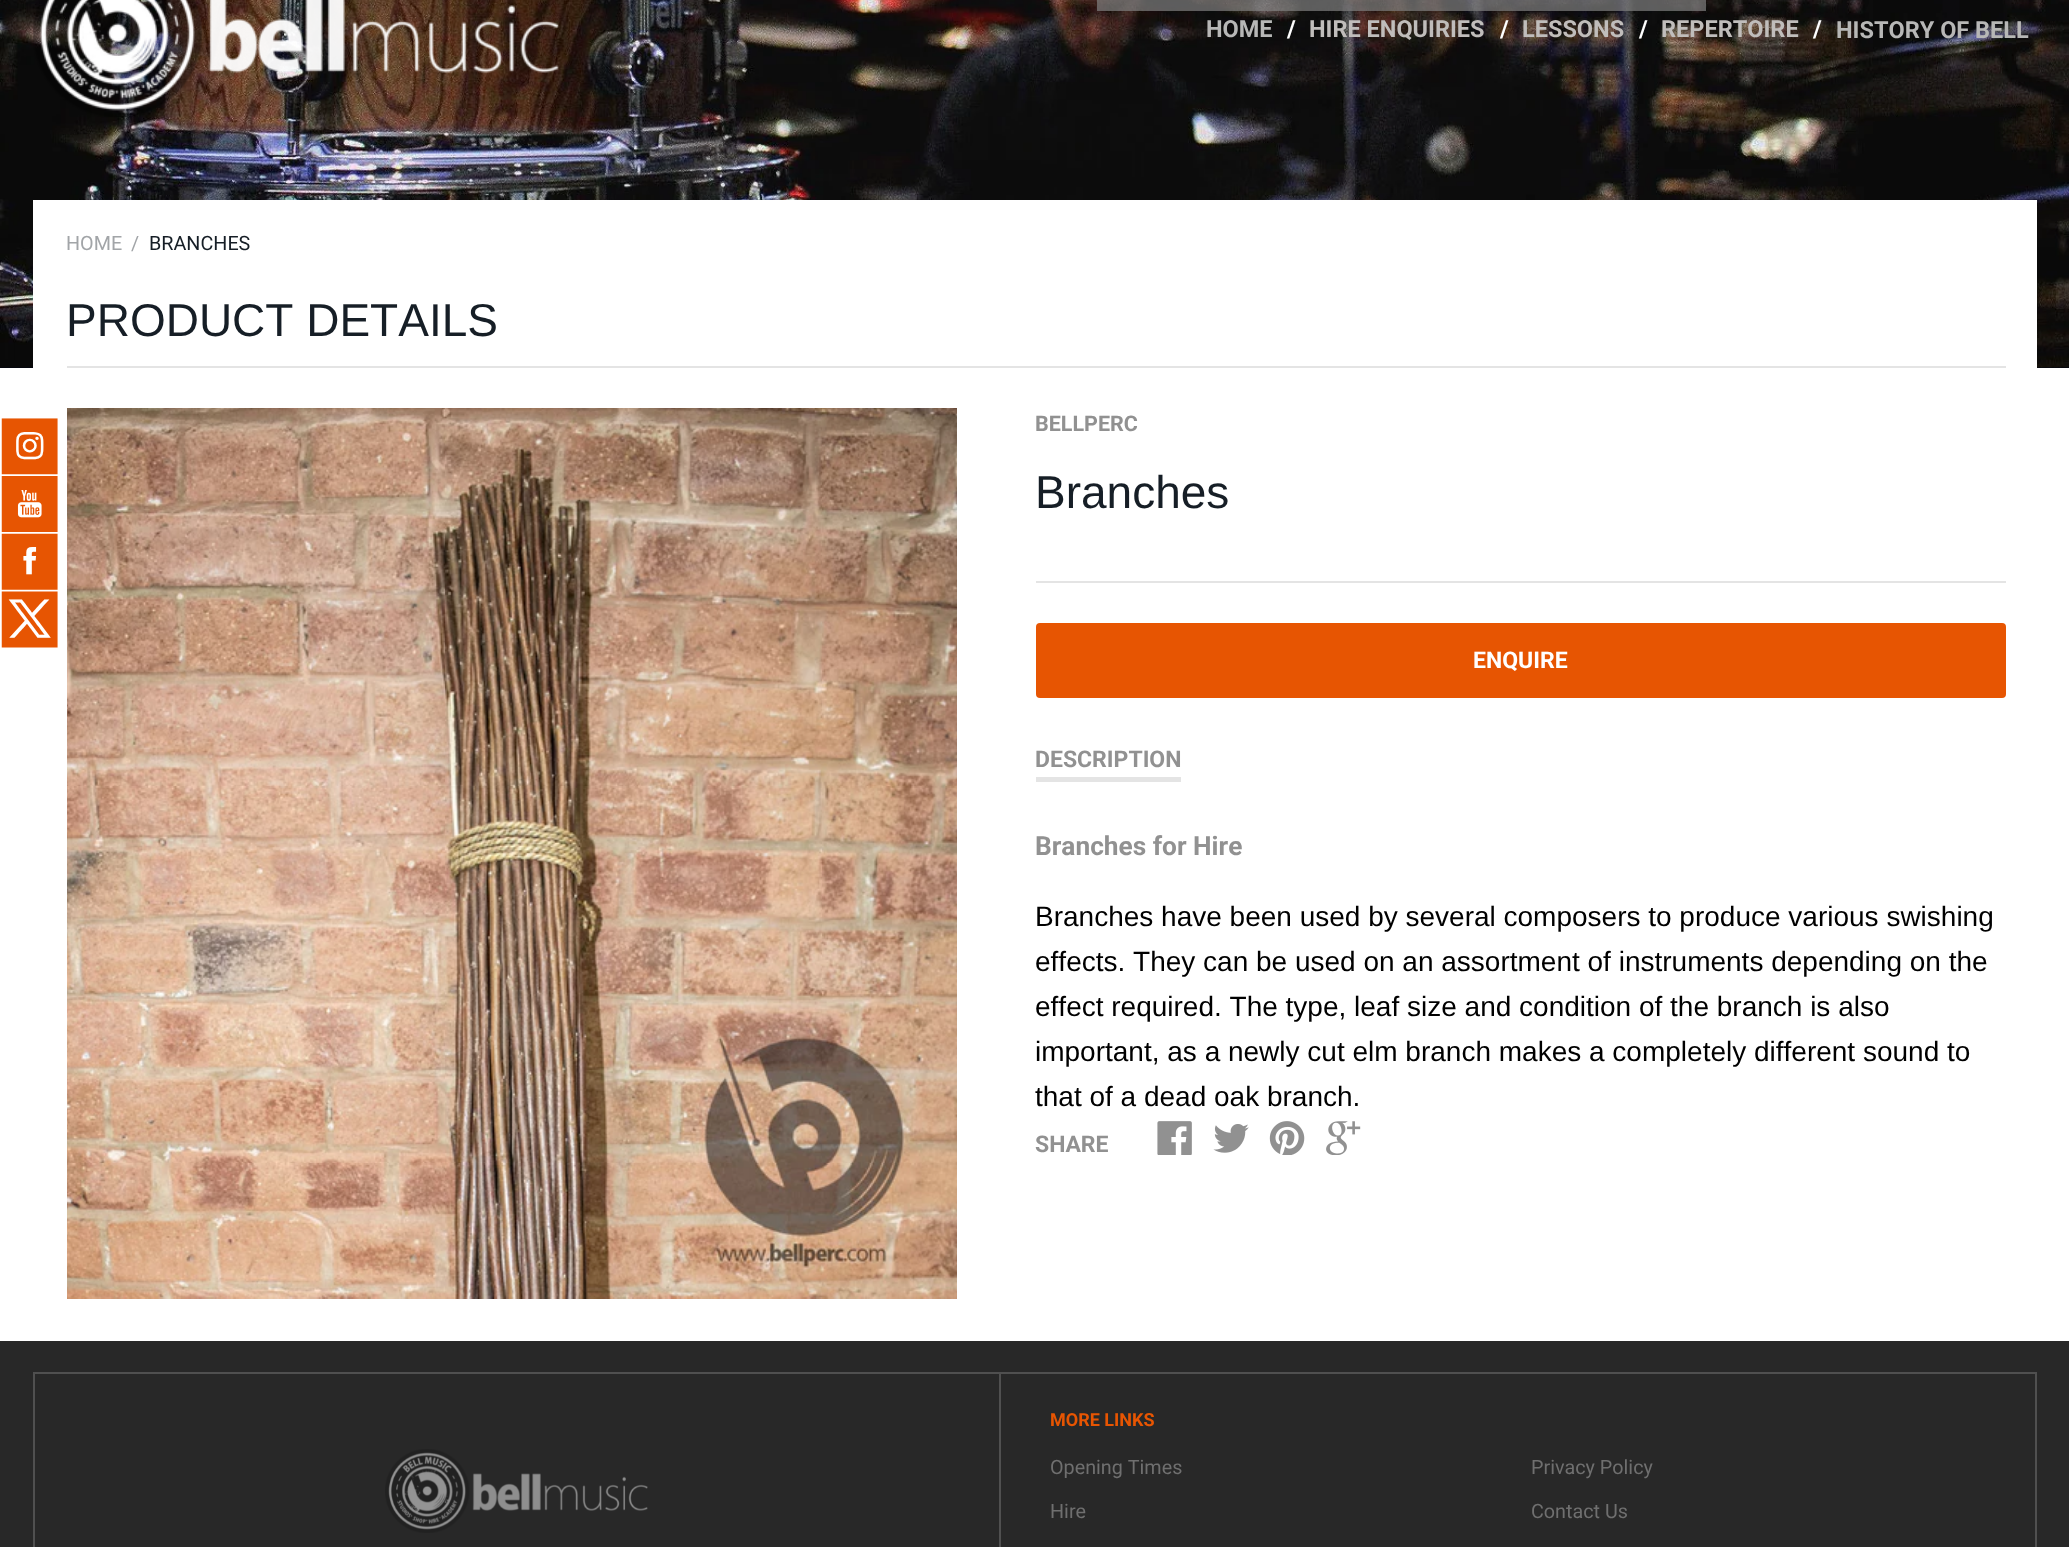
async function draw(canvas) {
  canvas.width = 2069
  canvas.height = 1547
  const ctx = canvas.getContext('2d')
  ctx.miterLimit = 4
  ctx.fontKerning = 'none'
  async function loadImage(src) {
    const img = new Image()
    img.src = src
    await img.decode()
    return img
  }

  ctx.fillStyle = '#fff'
  ctx.fillRect(0, 0, 2069, 1547)
  ctx.drawImage(await loadImage('image0.png'), 1, 418, 57, 230)
  ctx.fillStyle = '#000414'
  ctx.fillRect(0, 367, 2069, 1)
  ctx.drawImage(await loadImage('image1.png'), 0, 0, 2069, 368)
  ctx.drawImage(await loadImage('image2.png'), 33, 0, 526, 118)
  ctx.fillStyle = '#808080b3'
  ctx.fillRect(1097, 0, 609, 11)
  ctx.font = 'bold 23.5px Roboto'
  ctx.fillStyle = '#b7b7b6'
  ctx.fillText('HOME', 1206, 37)
  ctx.fillStyle = '#fff'
  ctx.fillText('/', 1287, 37)
  ctx.fillStyle = '#c0bdbb'
  ctx.fillText('HIRE ENQUIRIES', 1309, 37)
  ctx.fillStyle = '#fff'
  ctx.fillText('/', 1500, 37)
  ctx.fillStyle = '#c0bdbb'
  ctx.fillText('LESSONS', 1522, 37)
  ctx.fillStyle = '#fff'
  ctx.fillText('/', 1639, 37)
  ctx.fillStyle = '#c0bdbb'
  ctx.fillText('REPERTOIRE', 1661, 37)
  ctx.fillStyle = '#fff'
  ctx.fillText('/', 1813, 37)
  ctx.fillStyle = '#b7b7b6'
  ctx.fillText('HISTORY OF BELL', 1836, 38)
  ctx.fillStyle = '#fff'
  ctx.fillRect(33, 200, 2004, 168)
  ctx.font = '19.75px Roboto'
  ctx.fillStyle = '#a2a5a8'
  ctx.fillText('HOME', 66, 250)
  ctx.fillText('/', 131, 250)
  ctx.fillStyle = '#161e26'
  ctx.fillText('BRANCHES', 149, 250)
  ctx.fillStyle = '#e4e4e4'
  ctx.fillRect(67, 366, 1939, 2)
  ctx.font = '46px Liberation Sans'
  ctx.fillStyle = '#161e26'
  ctx.fillText('PRODUCT DETAILS', 66, 336)
  ctx.drawImage(await loadImage('image3.png'), 67, 408, 890, 891)
  ctx.fillStyle = '#e4e4e4'
  ctx.fillRect(1036, 581, 970, 2)
  ctx.font = 'bold 21.5px Roboto'
  ctx.fillStyle = '#919191'
  ctx.fillText('BELLPERC', 1035, 431)
  ctx.font = '46px Liberation Sans'
  ctx.fillStyle = '#161e26'
  ctx.fillText('Branches', 1035, 508)
  ctx.fillStyle = '#e75502'
  ctx.beginPath()
  ctx.roundRect(1036, 623, 970, 75, 4)
  ctx.fill()
  ctx.font = 'bold 23px Roboto'
  ctx.fillStyle = '#fff'
  ctx.fillText('ENQUIRE', 1473, 668)
  ctx.fillStyle = '#e4e4e4'
  ctx.fillRect(1036, 777, 145, 5)
  ctx.fillStyle = '#919191'
  ctx.fillText('DESCRIPTION', 1035, 767)
  ctx.font = 'bold 26.25px Roboto'
  ctx.fillText('Branches for Hire', 1035, 855)
  ctx.font = '28px Liberation Sans'
  ctx.fillStyle = '#000'
  ctx.fillText('Branches have been used by several composers to produce various swishing', 1035, 926)
  ctx.fillText('effects. They can be used on an assortment of instruments depending on the', 1035, 971)
  ctx.fillText('effect required. The type, leaf size and condition of the branch is also', 1035, 1016)
  ctx.fillText('important, as a newly cut elm branch makes a completely different sound to', 1035, 1061)
  ctx.fillText('that of a dead oak branch.', 1035, 1106)
  ctx.font = 'bold 23px Roboto'
  ctx.fillStyle = '#919191'
  ctx.fillText('SHARE', 1035, 1152)
  ctx.drawImage(await loadImage('image4.png'), 1157, 1121, 35, 34)
  ctx.drawImage(await loadImage('image5.png'), 1213, 1124, 36, 29)
  ctx.drawImage(await loadImage('image6.png'), 1269, 1121, 36, 34)
  ctx.drawImage(await loadImage('image7.png'), 1326, 1121, 35, 34)
  ctx.fillStyle = '#282828'
  ctx.fillRect(0, 1341, 2069, 206)
  ctx.strokeStyle = '#505050'
  ctx.lineWidth = 2
  ctx.strokeRect(34, 1373, 2002, 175)
  ctx.fillStyle = '#505050'
  ctx.fillRect(999, 1374, 2, 173)
  ctx.drawImage(await loadImage('image8.png'), 385, 1449, 263, 84)
  ctx.font = 'bold 18px Roboto'
  ctx.fillStyle = '#e75502'
  ctx.fillText('MORE LINKS', 1050, 1426)
  ctx.font = '19.75px Roboto'
  ctx.fillStyle = '#6f6f6f'
  ctx.fillText('Opening Times', 1050, 1474)
  ctx.fillText('Privacy Policy', 1531, 1474)
  ctx.fillText('Hire', 1050, 1518)
  ctx.fillText('Contact Us', 1531, 1518)
}

draw(document.querySelector('canvas'))
